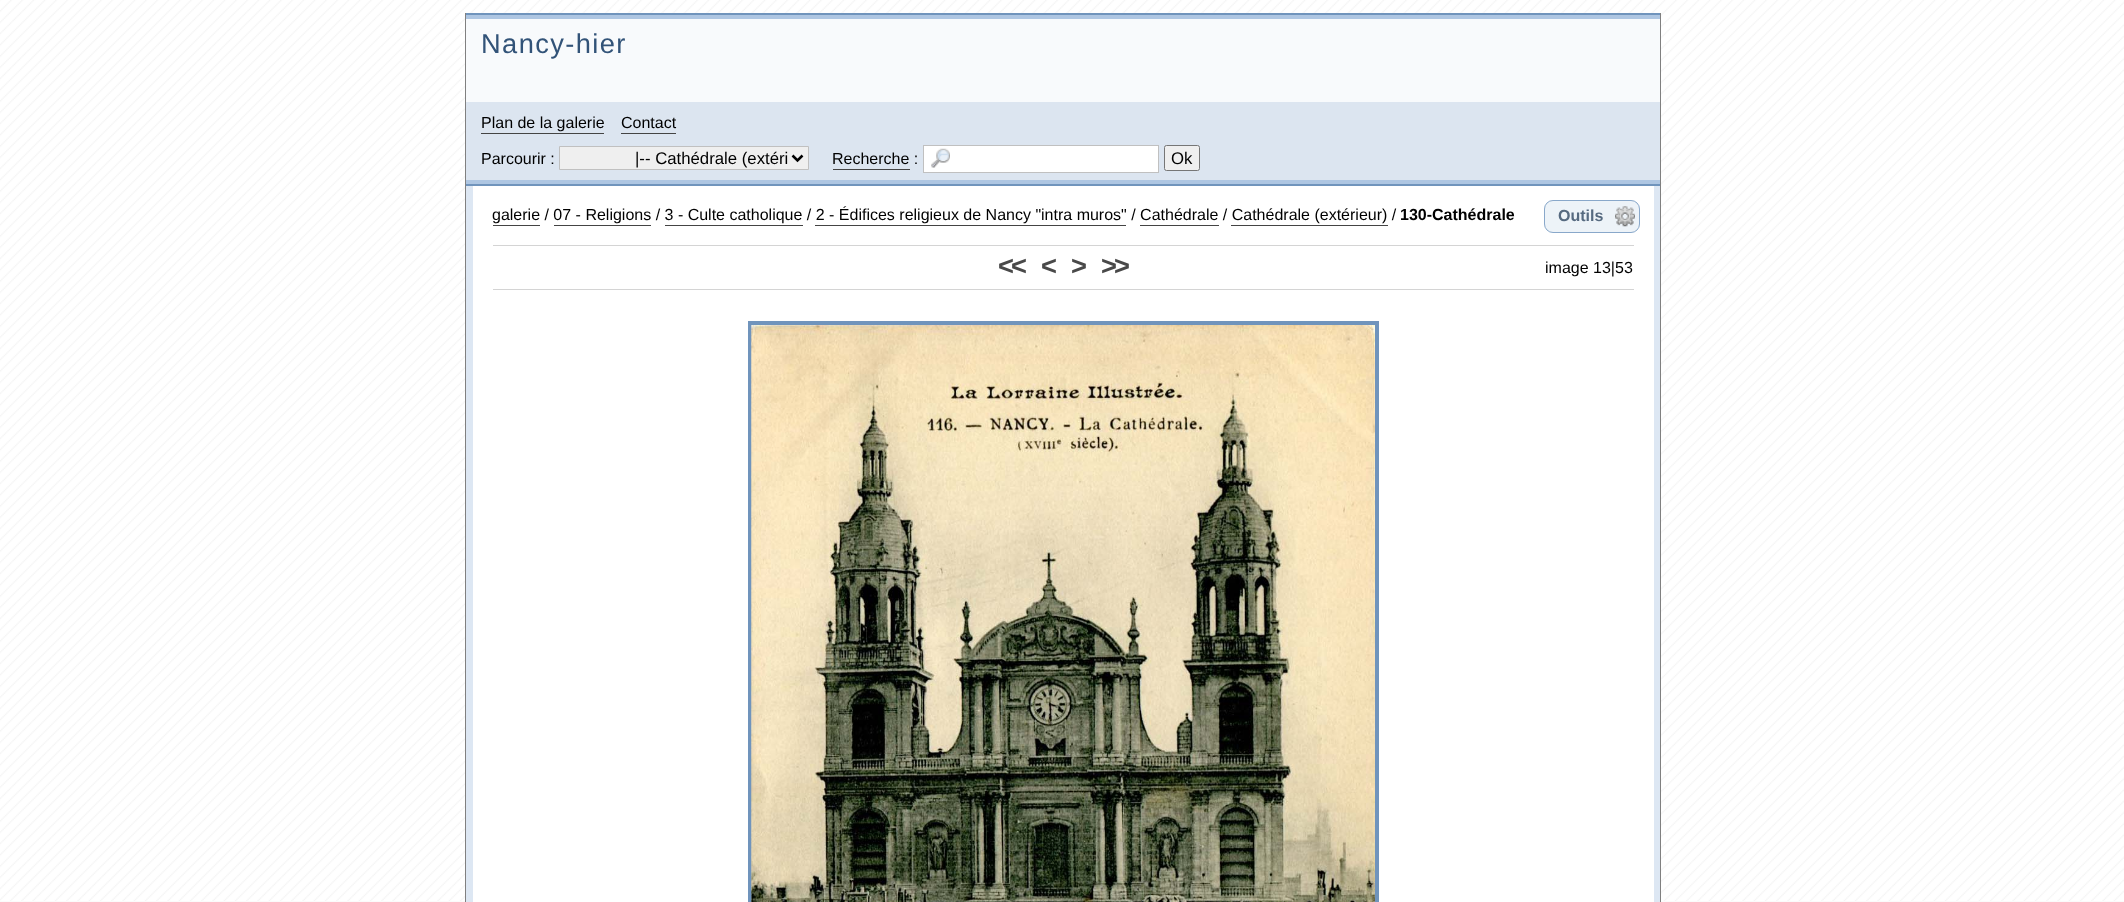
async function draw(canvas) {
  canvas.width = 2124
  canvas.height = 902
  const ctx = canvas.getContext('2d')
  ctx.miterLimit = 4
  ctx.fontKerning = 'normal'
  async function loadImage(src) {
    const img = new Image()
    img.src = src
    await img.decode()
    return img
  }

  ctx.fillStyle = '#fbfbfb'
  ctx.fillRect(0, 0, 2124, 902)
  ctx.drawImage(await loadImage('image0.png'), 0, 0, 2124, 901)
  ctx.fillStyle = '#808080'
  ctx.fillRect(1660, 13, 1, 889)
  ctx.fillRect(465, 13, 1, 889)
  ctx.fillStyle = '#dce5f0'
  ctx.fillRect(466, 102, 1194, 78)
  ctx.fillStyle = '#f8fafc'
  ctx.fillRect(466, 19, 1194, 83)
  ctx.fillStyle = '#7094bc'
  ctx.fillRect(466, 13, 1194, 2)
  ctx.fillStyle = '#aec6e2'
  ctx.fillRect(466, 15, 1194, 4)
  ctx.fillRect(466, 180, 1194, 4)
  ctx.letterSpacing = '1.4px'
  ctx.font = '27.25px Liberation Sans'
  ctx.fillStyle = '#325378'
  ctx.fillText('Nancy-hier', 481, 53)
  ctx.letterSpacing = '0px'
  ctx.font = '16px Liberation Sans'
  ctx.fillStyle = '#000'
  ctx.fillText('Plan de la galerie', 481, 128)
  ctx.fillStyle = '#444'
  ctx.fillRect(481, 133, 123, 1)
  ctx.fillStyle = '#000'
  ctx.fillText('Contact', 621, 128)
  ctx.fillStyle = '#444'
  ctx.fillRect(621, 133, 55, 1)
  ctx.fillStyle = '#000'
  ctx.fillText('Parcourir :', 481, 164)
  ctx.fillStyle = '#efefef'
  ctx.beginPath()
  ctx.rect(559.5, 146.5, 249, 23)
  ctx.fill()
  ctx.strokeStyle = '#c0c0c0'
  ctx.stroke()
  ctx.beginPath()
  ctx.moveTo(792.5, 155.5)
  ctx.lineTo(797.5, 160.5)
  ctx.lineTo(802.5, 155.5)
  ctx.strokeStyle = '#000'
  ctx.lineWidth = 2.5
  ctx.stroke()
  ctx.font = '16.75px Liberation Sans'
  ctx.fillStyle = '#000'
  ctx.fillText('|-- Cathédrale (extéri', 635, 164)
  ctx.font = '16px Liberation Sans'
  ctx.fillText('Recherche :', 832, 164)
  ctx.fillStyle = '#444'
  ctx.fillRect(833, 169, 77, 1)
  ctx.fillStyle = '#fff'
  ctx.fillRect(924, 146, 234, 26)
  ctx.drawImage(await loadImage('image1.png'), 931, 148, 19, 20)
  ctx.strokeStyle = '#c0c0c0'
  ctx.lineWidth = 1
  ctx.strokeRect(923.5, 145.5, 235, 27)
  ctx.fillStyle = '#efefef'
  ctx.beginPath()
  ctx.roundRect(1164.5, 145.5, 35, 25, 2)
  ctx.fill()
  ctx.strokeStyle = '#767676'
  ctx.stroke()
  ctx.font = '16.75px Liberation Sans'
  ctx.fillStyle = '#000'
  ctx.fillText('Ok', 1171, 164)
  ctx.fillStyle = '#7094bc'
  ctx.fillRect(466, 184, 1194, 2)
  ctx.fillStyle = '#fff'
  ctx.fillRect(473, 186, 1181, 716)
  ctx.fillStyle = '#dde7f3'
  ctx.fillRect(1654, 186, 6, 716)
  ctx.fillRect(466, 186, 7, 716)
  ctx.fillStyle = '#d4d4d4'
  ctx.fillRect(493, 245, 1141, 1)
  ctx.font = '16px Liberation Sans'
  ctx.fillStyle = '#000'
  ctx.fillText('galerie / 07 - Religions / 3 - Culte catholique / 2 - Édifices religieux de Nancy "intra muros" / Cathédrale / Cathédrale (extérieur) /', 492, 220)
  ctx.fillStyle = '#444'
  ctx.fillRect(493, 225, 47, 1)
  ctx.font = 'bold 16px Liberation Sans'
  ctx.fillStyle = '#000'
  ctx.fillText('130-Cathédrale', 1400, 220)
  ctx.fillStyle = '#444'
  ctx.fillRect(554, 225, 97, 1)
  ctx.fillRect(665, 225, 138, 1)
  ctx.fillRect(815, 225, 311, 1)
  ctx.fillRect(1140, 225, 79, 1)
  ctx.fillRect(1231, 225, 157, 1)
  ctx.fillStyle = '#edf3f8'
  ctx.beginPath()
  ctx.roundRect(1544, 200, 96, 33, 9)
  ctx.fill()
  ctx.drawImage(await loadImage('image2.png'), 1615, 206, 20, 21)
  ctx.beginPath()
  ctx.roundRect(1544.5, 200.5, 95, 32, 8.5)
  ctx.strokeStyle = '#89a8ca'
  ctx.stroke()
  ctx.fillStyle = '#566a80'
  ctx.fillText('Outils', 1558, 221)
  ctx.fillStyle = '#d4d4d4'
  ctx.fillRect(493, 289, 1141, 1)
  ctx.letterSpacing = '-3px'
  ctx.font = 'bold 27.25px Liberation Sans'
  ctx.fillStyle = '#494949'
  ctx.fillText('<<', 998, 275)
  ctx.fillText('<', 1041, 275)
  ctx.fillText('>', 1071, 275)
  ctx.fillText('>>', 1101, 275)
  ctx.letterSpacing = '0px'
  ctx.font = '16px Liberation Sans'
  ctx.fillStyle = '#000'
  ctx.fillText('image 13|53', 1545, 273)
  ctx.strokeStyle = '#7094bc'
  ctx.lineWidth = 4
  ctx.strokeRect(750, 323, 627, 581)
  ctx.drawImage(await loadImage('image3.png'), 751, 325, 624, 577)
}

draw(document.querySelector('canvas'))
